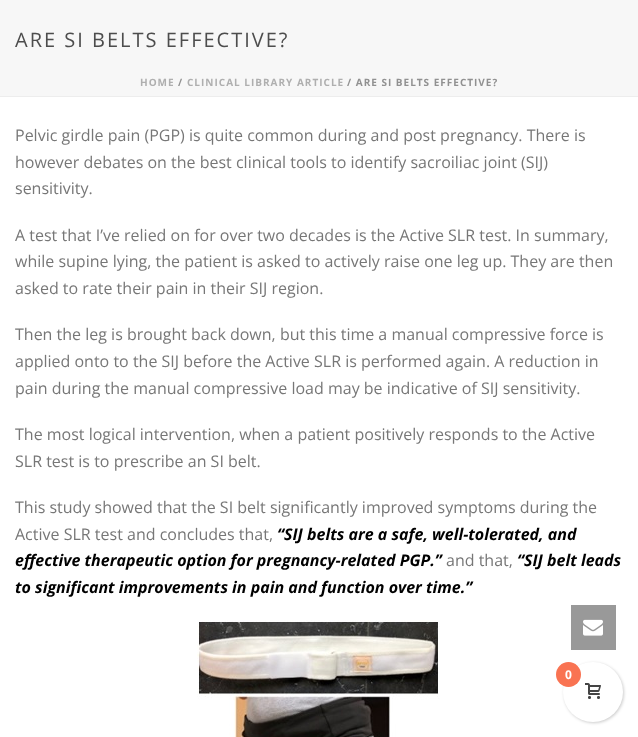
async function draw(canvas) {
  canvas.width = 638
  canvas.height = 737
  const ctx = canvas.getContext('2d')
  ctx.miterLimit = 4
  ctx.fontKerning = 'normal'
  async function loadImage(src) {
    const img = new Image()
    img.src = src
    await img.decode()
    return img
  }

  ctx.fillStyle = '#fff'
  ctx.fillRect(0, 0, 638, 737)
  ctx.fillStyle = '#f7f7f7'
  ctx.fillRect(0, 0, 638, 96)
  ctx.fillStyle = '#ededed'
  ctx.fillRect(0, 96, 638, 1)
  ctx.letterSpacing = '2px'
  ctx.font = '20px Open Sans'
  ctx.fillStyle = '#4d4d4d'
  ctx.fillText('ARE SI BELTS EFFECTIVE?', 15, 47)
  ctx.letterSpacing = '1px'
  ctx.font = 'bold 10px Open Sans'
  ctx.fillStyle = '#afafaf'
  ctx.fillText('HOME', 140, 86)
  ctx.fillStyle = '#919191'
  ctx.fillText('/', 178, 86)
  ctx.fillStyle = '#afafaf'
  ctx.fillText('CLINICAL LIBRARY ARTICLE', 187, 86)
  ctx.fillStyle = '#919191'
  ctx.fillText('/ ARE SI BELTS EFFECTIVE?', 347, 86)
  ctx.letterSpacing = '0px'
  ctx.font = '16px Open Sans'
  ctx.fillStyle = '#777'
  ctx.fillText('Pelvic girdle pain (PGP) is quite common during and post pregnancy. There is', 15, 141)
  ctx.fillText('however debates on the best clinical tools to identify sacroiliac joint (SIJ)', 15, 168)
  ctx.fillText('sensitivity.', 15, 194)
  ctx.fillText('A test that I’ve relied on for over two decades is the Active SLR test. In summary,', 15, 241)
  ctx.fillText('while supine lying, the patient is asked to actively raise one leg up. They are then', 15, 267)
  ctx.fillText('asked to rate their pain in their SIJ region.', 15, 294)
  ctx.fillText('Then the leg is brought back down, but this time a manual compressive force is', 15, 340)
  ctx.fillText('applied onto to the SIJ before the Active SLR is performed again. A reduction in', 15, 367)
  ctx.fillText('pain during the manual compressive load may be indicative of SIJ sensitivity.', 15, 394)
  ctx.fillText('The most logical intervention, when a patient positively responds to the Active', 15, 440)
  ctx.fillText('SLR test is to prescribe an SI belt.', 15, 467)
  ctx.fillText('This study showed that the SI belt significantly improved symptoms during the', 15, 513)
  ctx.fillText('Active SLR test and concludes that,', 15, 540)
  ctx.font = 'italic bold 16px Open Sans'
  ctx.fillStyle = '#000'
  ctx.fillText('“SIJ belts are a safe, well-tolerated, and', 277, 540)
  ctx.fillText('effective therapeutic option for pregnancy-related PGP.”', 15, 566)
  ctx.font = '16px Open Sans'
  ctx.fillStyle = '#777'
  ctx.fillText('and that,', 446, 566)
  ctx.font = 'italic bold 16px Open Sans'
  ctx.fillStyle = '#000'
  ctx.fillText('“SIJ belt leads', 517, 566)
  ctx.fillText('to significant improvements in pain and function over time.”', 15, 593)
  ctx.drawImage(await loadImage('image0.png'), 197, 620, 243, 117)
  ctx.fillStyle = '#999'
  ctx.fillRect(571, 605, 45, 45)
  ctx.drawImage(await loadImage('image1.png'), 583, 619, 20, 17)
  ctx.fillStyle = '#00000033'
  ctx.filter = 'blur(1.5px)'
  ctx.beginPath()
  ctx.roundRect(564, 663, 60, 60, 30)
  ctx.fill()
  ctx.filter = 'none'
  ctx.fillStyle = '#fff'
  ctx.beginPath()
  ctx.arc(593, 692, 30, 0, 2 * Math.PI)
  ctx.fill()
  ctx.fillStyle = '#f97352'
  ctx.beginPath()
  ctx.arc(568.5, 674.5, 12.5, 0, 2 * Math.PI)
  ctx.fill()
  ctx.font = 'bold 12px Open Sans'
  ctx.fillStyle = '#fff'
  ctx.fillText('0', 565, 679)
  ctx.drawImage(await loadImage('image2.png'), 585, 683, 16, 16)
}

draw(document.querySelector('canvas'))
